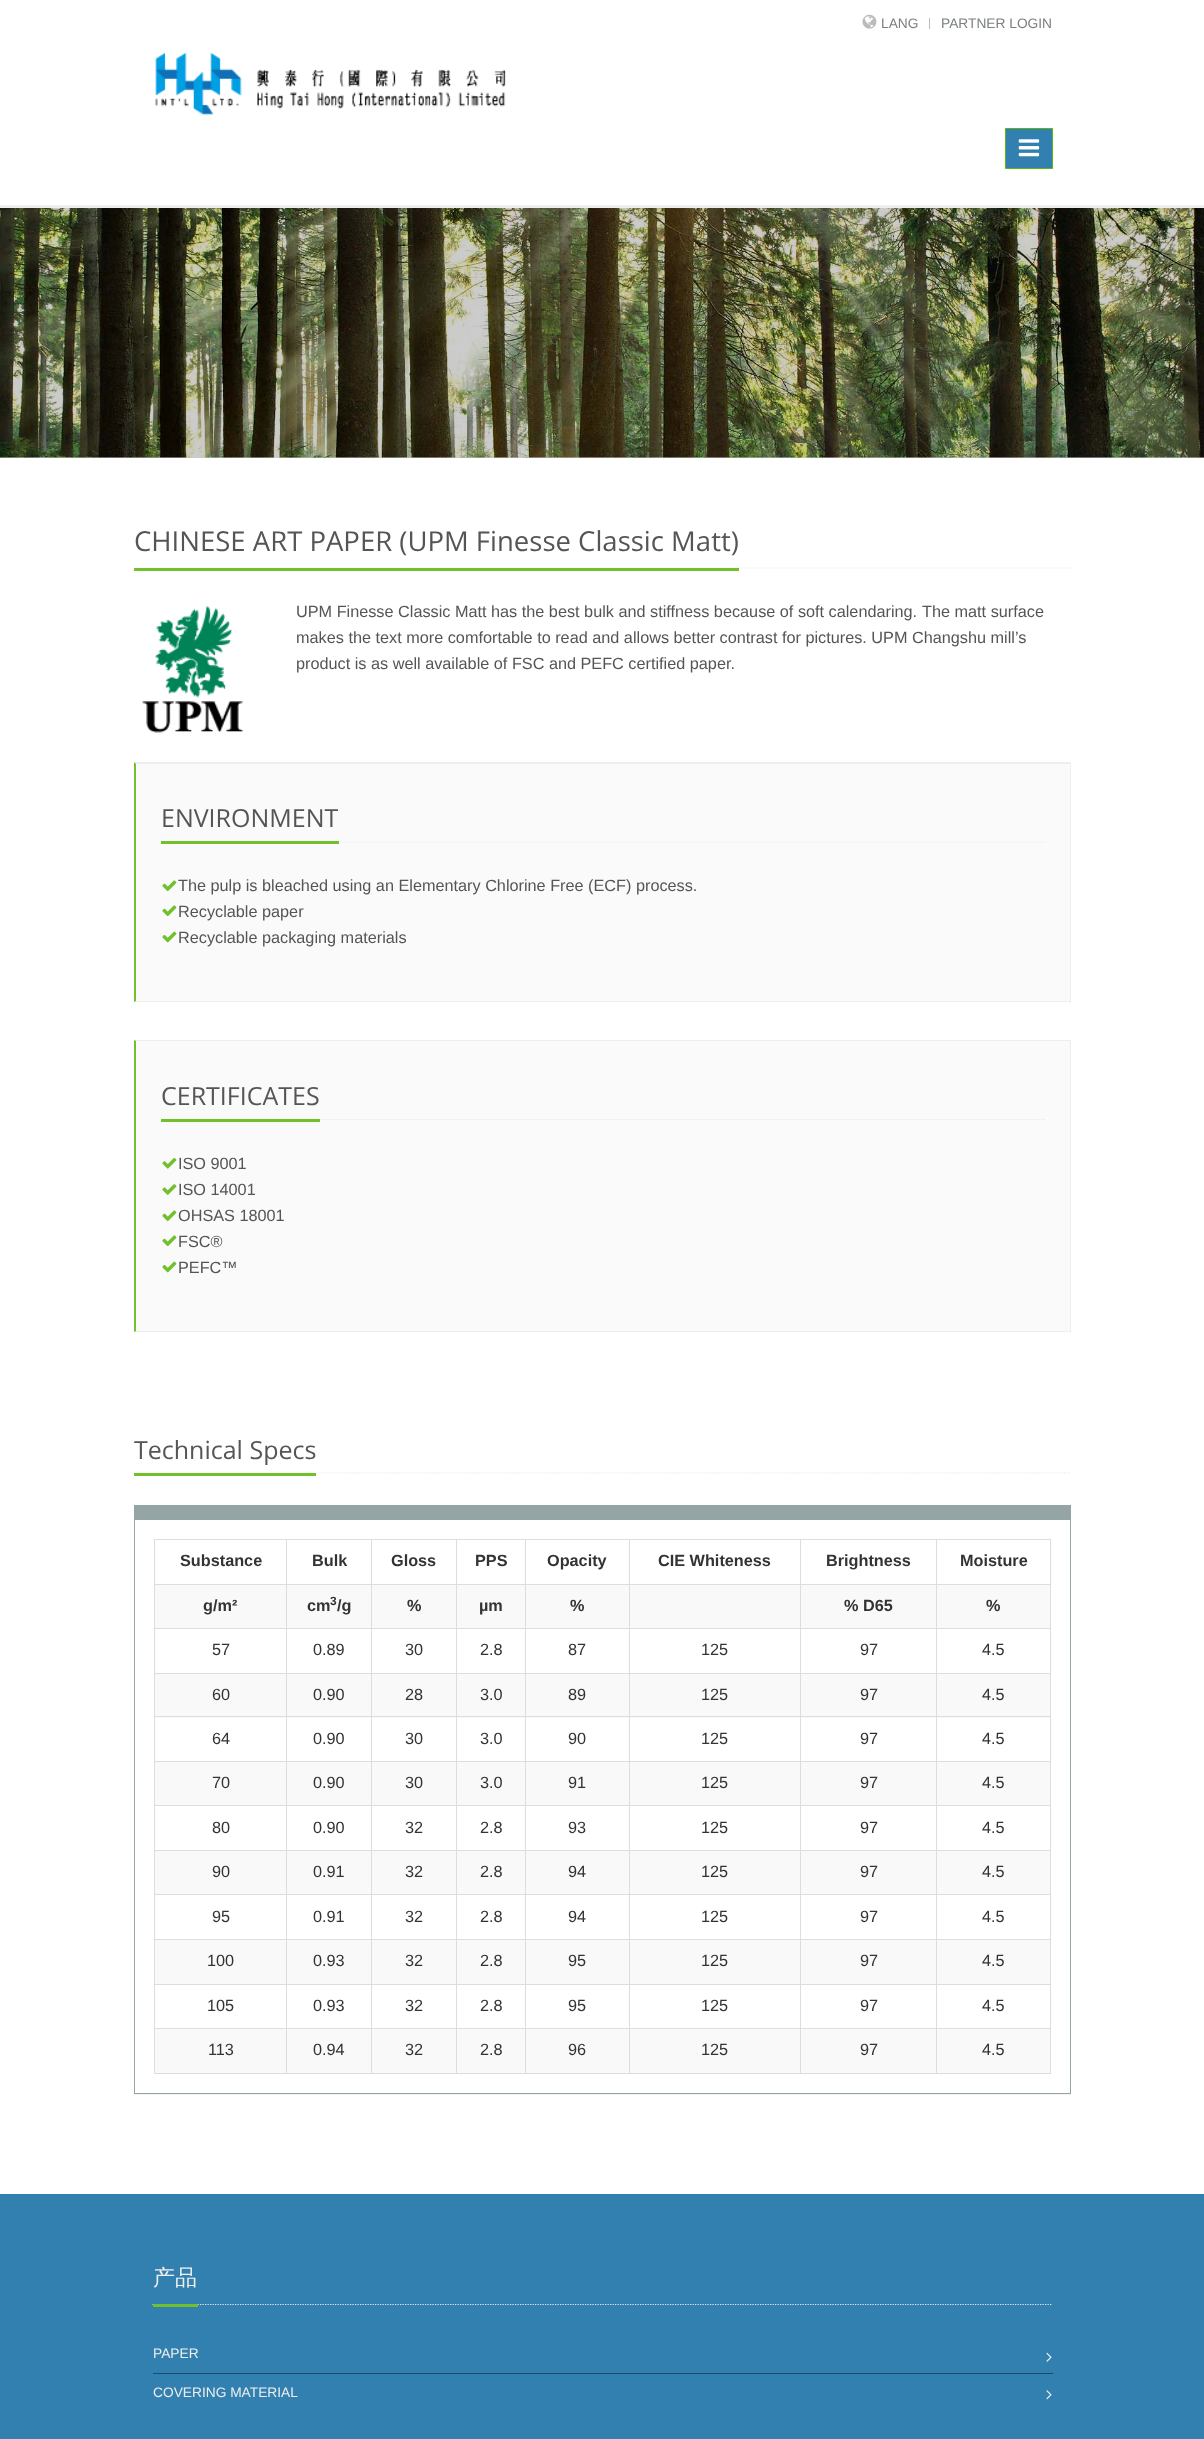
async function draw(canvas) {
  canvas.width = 1204
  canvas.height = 2439
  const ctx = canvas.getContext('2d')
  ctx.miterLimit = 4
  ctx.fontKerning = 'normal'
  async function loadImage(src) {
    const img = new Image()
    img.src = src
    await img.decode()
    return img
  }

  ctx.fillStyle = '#fff'
  ctx.fillRect(0, 0, 1204, 2439)
  ctx.fillStyle = '#ccc'
  ctx.fillRect(0, 457, 1204, 1)
  ctx.fillStyle = '#eee'
  ctx.fillRect(0, 205, 1204, 3)
  ctx.drawImage(await loadImage('image0.png'), 862, 14, 15, 15)
  ctx.font = '13.75px Liberation Sans'
  ctx.fillStyle = '#7c8082'
  ctx.fillText('LANG', 881, 28)
  ctx.fillStyle = '#bbb'
  ctx.fillRect(929, 18, 1, 11)
  ctx.fillStyle = '#7c8082'
  ctx.fillText('PARTNER LOGIN', 941, 28)
  ctx.drawImage(await loadImage('image1.png'), 155, 52, 351, 64)
  ctx.fillStyle = '#3180b0'
  ctx.beginPath()
  ctx.rect(1005.5, 128.5, 47, 40)
  ctx.fill()
  ctx.strokeStyle = '#5fb611'
  ctx.stroke()
  ctx.drawImage(await loadImage('image2.png'), 1018, 139, 22, 18)
  ctx.drawImage(await loadImage('image3.png'), 0, 208, 1204, 250)
  ctx.beginPath()
  ctx.moveTo(134, 568)
  ctx.lineTo(1071, 568)
  ctx.strokeStyle = '#e4e9f0'
  ctx.lineWidth = 1.2
  ctx.setLineDash([1.25, 1.25])
  ctx.stroke()
  ctx.fillStyle = '#72c02c'
  ctx.fillRect(134, 568, 605, 3)
  ctx.font = '27.5px Open Sans'
  ctx.fillStyle = '#555'
  ctx.fillText('CHINESE ART PAPER (UPM Finesse Classic Matt)', 134, 551)
  ctx.drawImage(await loadImage('image4.png'), 142, 606, 101, 127)
  ctx.font = '16.25px Liberation Sans'
  ctx.fillText('UPM Finesse Classic Matt has the best bulk and stiffness because of soft calendaring.', 296, 617)
  ctx.fillText('The matt surface', 922, 617)
  ctx.fillText('makes the text more comfortable to read and allows better contrast for pictures. UPM Changshu mill’s', 296, 643)
  ctx.fillText('product is as well available of FSC and PEFC certified paper.', 296, 669)
  ctx.fillStyle = '#fafafa'
  ctx.fillRect(136, 764, 934, 237)
  ctx.fillStyle = '#eee'
  ctx.beginPath()
  ctx.moveTo(134, 762)
  ctx.lineTo(1071, 762)
  ctx.lineTo(1070, 764)
  ctx.lineTo(136, 764)
  ctx.closePath()
  ctx.fill()
  ctx.fillRect(1070, 763, 1, 240)
  ctx.beginPath()
  ctx.moveTo(1071, 1002)
  ctx.lineTo(134, 1002)
  ctx.lineTo(136, 1001)
  ctx.lineTo(1070, 1001)
  ctx.closePath()
  ctx.fill()
  ctx.fillStyle = '#72c02c'
  ctx.beginPath()
  ctx.moveTo(134, 1002)
  ctx.lineTo(134, 762)
  ctx.lineTo(136, 764)
  ctx.lineTo(136, 1001)
  ctx.closePath()
  ctx.fill()
  ctx.beginPath()
  ctx.moveTo(161, 842)
  ctx.lineTo(1045, 842)
  ctx.stroke()
  ctx.fillRect(161, 841, 178, 3)
  ctx.font = '25px Open Sans'
  ctx.fillStyle = '#555'
  ctx.fillText('ENVIRONMENT', 161, 827)
  ctx.drawImage(await loadImage('image5.png'), 162, 880, 15, 12)
  ctx.font = '16.25px Liberation Sans'
  ctx.fillText('The pulp is bleached using an Elementary Chlorine Free (ECF) process.', 178, 891)
  ctx.drawImage(await loadImage('image5.png'), 162, 905, 15, 12)
  ctx.fillText('Recyclable paper', 178, 917)
  ctx.drawImage(await loadImage('image6.png'), 162, 931, 15, 12)
  ctx.fillText('Recyclable packaging materials', 178, 943)
  ctx.fillStyle = '#fafafa'
  ctx.fillRect(136, 1041, 934, 290)
  ctx.fillStyle = '#eee'
  ctx.beginPath()
  ctx.moveTo(134, 1040)
  ctx.lineTo(1071, 1040)
  ctx.lineTo(1070, 1041)
  ctx.lineTo(136, 1041)
  ctx.closePath()
  ctx.fill()
  ctx.fillRect(1070, 1040, 1, 293)
  ctx.beginPath()
  ctx.moveTo(1071, 1332)
  ctx.lineTo(134, 1332)
  ctx.lineTo(136, 1331)
  ctx.lineTo(1070, 1331)
  ctx.closePath()
  ctx.fill()
  ctx.fillStyle = '#72c02c'
  ctx.beginPath()
  ctx.moveTo(134, 1332)
  ctx.lineTo(134, 1040)
  ctx.lineTo(136, 1041)
  ctx.lineTo(136, 1331)
  ctx.closePath()
  ctx.fill()
  ctx.beginPath()
  ctx.moveTo(161, 1119.5)
  ctx.lineTo(1045, 1119.5)
  ctx.stroke()
  ctx.fillRect(161, 1119, 159, 3)
  ctx.font = '25px Open Sans'
  ctx.fillStyle = '#555'
  ctx.fillText('CERTIFICATES', 161, 1105)
  ctx.drawImage(await loadImage('image7.png'), 162, 1157, 15, 12)
  ctx.font = '16.25px Liberation Sans'
  ctx.fillText('ISO 9001', 178, 1169)
  ctx.drawImage(await loadImage('image8.png'), 162, 1184, 15, 11)
  ctx.fillText('ISO 14001', 178, 1195)
  ctx.drawImage(await loadImage('image5.png'), 162, 1210, 15, 12)
  ctx.fillText('OHSAS 18001', 178, 1221)
  ctx.drawImage(await loadImage('image5.png'), 162, 1235, 15, 12)
  ctx.fillText('FSC®', 178, 1247)
  ctx.drawImage(await loadImage('image6.png'), 162, 1261, 15, 12)
  ctx.fillText('PEFC™', 178, 1273)
  ctx.beginPath()
  ctx.moveTo(134, 1473)
  ctx.lineTo(1071, 1473)
  ctx.stroke()
  ctx.fillStyle = '#72c02c'
  ctx.fillRect(134, 1473, 182, 3)
  ctx.font = '25px Open Sans'
  ctx.fillStyle = '#555'
  ctx.fillText('Technical Specs', 134, 1459)
  ctx.fillStyle = '#0000000d'
  ctx.filter = 'blur(0.5px)'
  ctx.beginPath()
  ctx.rect(134, 1506, 937, 589)
  ctx.fill()
  ctx.filter = 'none'
  ctx.fillStyle = '#fff'
  ctx.fillRect(135, 1520, 935, 573)
  ctx.strokeStyle = '#95a5a6'
  ctx.lineWidth = 1
  ctx.setLineDash([])
  ctx.strokeRect(134.5, 1505.5, 936, 588)
  ctx.fillStyle = '#95a5a6'
  ctx.fillRect(135, 1506, 935, 14)
  ctx.fillStyle = '#ddd'
  ctx.fillRect(154, 1539, 897, 1)
  ctx.fillRect(1050, 1539, 1, 535)
  ctx.fillRect(154, 2073, 897, 1)
  ctx.fillRect(154, 1539, 1, 535)
  ctx.font = 'bold 16.25px Liberation Sans'
  ctx.fillStyle = '#333'
  ctx.fillText('Substance', 180, 1566)
  ctx.fillStyle = '#ddd'
  ctx.fillRect(936, 1584, 115, 1)
  ctx.fillStyle = '#f9f9f9'
  ctx.fillRect(155, 1585, 895, 43)
  ctx.fillStyle = '#ddd'
  ctx.fillRect(936, 1628, 115, 1)
  ctx.fillRect(936, 1673, 115, 1)
  ctx.fillStyle = '#f9f9f9'
  ctx.fillRect(155, 1674, 895, 44)
  ctx.fillStyle = '#ddd'
  ctx.fillRect(936, 1716, 115, 1)
  ctx.fillStyle = '#f9f9f9'
  ctx.fillRect(155, 1762, 895, 43)
  ctx.fillStyle = '#ddd'
  ctx.fillRect(936, 1761, 115, 1)
  ctx.fillRect(936, 1805, 115, 1)
  ctx.fillRect(936, 1850, 115, 1)
  ctx.fillStyle = '#f9f9f9'
  ctx.fillRect(155, 1851, 895, 43)
  ctx.fillStyle = '#ddd'
  ctx.fillRect(936, 1894, 115, 1)
  ctx.fillRect(936, 1939, 115, 1)
  ctx.fillStyle = '#f9f9f9'
  ctx.fillRect(155, 1940, 895, 44)
  ctx.fillStyle = '#ddd'
  ctx.fillRect(936, 1984, 115, 1)
  ctx.fillRect(936, 2028, 115, 1)
  ctx.fillStyle = '#f9f9f9'
  ctx.fillRect(155, 2029, 895, 44)
  ctx.fillStyle = '#ddd'
  ctx.fillRect(936, 2028, 1, 46)
  ctx.fillRect(800, 2028, 138, 1)
  ctx.fillRect(936, 1984, 1, 45)
  ctx.fillRect(800, 1984, 138, 1)
  ctx.fillRect(936, 1939, 1, 46)
  ctx.fillRect(800, 1939, 138, 1)
  ctx.fillRect(936, 1894, 1, 46)
  ctx.fillRect(800, 1894, 138, 1)
  ctx.fillRect(936, 1850, 1, 45)
  ctx.fillRect(800, 1850, 138, 1)
  ctx.fillRect(936, 1805, 1, 46)
  ctx.fillRect(800, 1805, 138, 1)
  ctx.fillRect(936, 1761, 1, 45)
  ctx.fillRect(800, 1761, 138, 1)
  ctx.fillRect(936, 1716, 1, 47)
  ctx.fillRect(800, 1716, 138, 1)
  ctx.fillRect(936, 1673, 1, 45)
  ctx.fillRect(800, 1673, 138, 1)
  ctx.fillRect(936, 1628, 1, 46)
  ctx.fillRect(800, 1628, 138, 1)
  ctx.fillRect(936, 1584, 1, 45)
  ctx.fillRect(800, 1584, 138, 1)
  ctx.fillRect(800, 2028, 1, 46)
  ctx.fillRect(629, 2028, 172, 1)
  ctx.fillRect(800, 1984, 1, 45)
  ctx.fillRect(629, 1984, 172, 1)
  ctx.fillRect(800, 1939, 1, 46)
  ctx.fillRect(629, 1939, 172, 1)
  ctx.fillRect(800, 1894, 1, 46)
  ctx.fillRect(629, 1894, 172, 1)
  ctx.fillRect(800, 1850, 1, 45)
  ctx.fillRect(629, 1850, 172, 1)
  ctx.fillRect(800, 1805, 1, 46)
  ctx.fillRect(629, 1805, 172, 1)
  ctx.fillRect(800, 1761, 1, 45)
  ctx.fillRect(629, 1761, 172, 1)
  ctx.fillRect(800, 1716, 1, 47)
  ctx.fillRect(629, 1716, 172, 1)
  ctx.fillRect(800, 1673, 1, 45)
  ctx.fillRect(629, 1673, 172, 1)
  ctx.fillRect(800, 1628, 1, 46)
  ctx.fillRect(629, 1628, 172, 1)
  ctx.fillRect(800, 1584, 1, 45)
  ctx.fillRect(629, 1584, 172, 1)
  ctx.fillRect(629, 2028, 1, 46)
  ctx.fillRect(525, 2028, 105, 1)
  ctx.fillRect(629, 1984, 1, 45)
  ctx.fillRect(525, 1984, 105, 1)
  ctx.fillRect(629, 1939, 1, 46)
  ctx.fillRect(525, 1939, 105, 1)
  ctx.fillRect(629, 1894, 1, 46)
  ctx.fillRect(525, 1894, 105, 1)
  ctx.fillRect(629, 1850, 1, 45)
  ctx.fillRect(525, 1850, 105, 1)
  ctx.fillRect(629, 1805, 1, 46)
  ctx.fillRect(525, 1805, 105, 1)
  ctx.fillRect(629, 1761, 1, 45)
  ctx.fillRect(525, 1761, 105, 1)
  ctx.fillRect(629, 1716, 1, 47)
  ctx.fillRect(525, 1716, 105, 1)
  ctx.fillRect(629, 1673, 1, 45)
  ctx.fillRect(525, 1673, 105, 1)
  ctx.fillRect(629, 1628, 1, 46)
  ctx.fillRect(525, 1628, 105, 1)
  ctx.fillRect(629, 1584, 1, 45)
  ctx.fillRect(525, 1584, 105, 1)
  ctx.fillRect(525, 2028, 1, 46)
  ctx.fillRect(456, 2028, 70, 1)
  ctx.fillRect(525, 1984, 1, 45)
  ctx.fillRect(456, 1984, 70, 1)
  ctx.fillRect(525, 1939, 1, 46)
  ctx.fillRect(456, 1939, 70, 1)
  ctx.fillRect(525, 1894, 1, 46)
  ctx.fillRect(456, 1894, 70, 1)
  ctx.fillRect(525, 1850, 1, 45)
  ctx.fillRect(456, 1850, 70, 1)
  ctx.fillRect(525, 1805, 1, 46)
  ctx.fillRect(456, 1805, 70, 1)
  ctx.fillRect(525, 1761, 1, 45)
  ctx.fillRect(456, 1761, 70, 1)
  ctx.fillRect(525, 1716, 1, 47)
  ctx.fillRect(456, 1716, 70, 1)
  ctx.fillRect(525, 1673, 1, 45)
  ctx.fillRect(456, 1673, 70, 1)
  ctx.fillRect(525, 1628, 1, 46)
  ctx.fillRect(456, 1628, 70, 1)
  ctx.fillRect(525, 1584, 1, 45)
  ctx.fillRect(456, 1584, 70, 1)
  ctx.fillRect(456, 2028, 1, 46)
  ctx.fillRect(371, 2028, 87, 1)
  ctx.fillRect(456, 1984, 1, 45)
  ctx.fillRect(371, 1984, 87, 1)
  ctx.fillRect(456, 1939, 1, 46)
  ctx.fillRect(371, 1939, 87, 1)
  ctx.fillRect(456, 1894, 1, 46)
  ctx.fillRect(371, 1894, 87, 1)
  ctx.fillRect(456, 1850, 1, 45)
  ctx.fillRect(371, 1850, 87, 1)
  ctx.fillRect(456, 1805, 1, 46)
  ctx.fillRect(371, 1805, 87, 1)
  ctx.fillRect(456, 1761, 1, 45)
  ctx.fillRect(371, 1761, 87, 1)
  ctx.fillRect(456, 1716, 1, 47)
  ctx.fillRect(371, 1716, 87, 1)
  ctx.fillRect(456, 1673, 1, 45)
  ctx.fillRect(371, 1673, 87, 1)
  ctx.fillRect(456, 1628, 1, 46)
  ctx.fillRect(371, 1628, 87, 1)
  ctx.fillRect(456, 1584, 1, 45)
  ctx.fillRect(371, 1584, 87, 1)
  ctx.fillRect(371, 2028, 1, 46)
  ctx.fillRect(286, 2028, 87, 1)
  ctx.fillRect(371, 1984, 1, 45)
  ctx.fillRect(286, 1984, 87, 1)
  ctx.fillRect(371, 1939, 1, 46)
  ctx.fillRect(286, 1939, 87, 1)
  ctx.fillRect(371, 1894, 1, 46)
  ctx.fillRect(286, 1894, 87, 1)
  ctx.fillRect(371, 1850, 1, 45)
  ctx.fillRect(286, 1850, 87, 1)
  ctx.fillRect(371, 1805, 1, 46)
  ctx.fillRect(286, 1805, 87, 1)
  ctx.fillRect(371, 1761, 1, 45)
  ctx.fillRect(286, 1761, 87, 1)
  ctx.fillRect(371, 1716, 1, 47)
  ctx.fillRect(286, 1716, 87, 1)
  ctx.fillRect(371, 1673, 1, 45)
  ctx.fillRect(286, 1673, 87, 1)
  ctx.fillRect(371, 1628, 1, 46)
  ctx.fillRect(286, 1628, 87, 1)
  ctx.fillRect(371, 1584, 1, 45)
  ctx.fillRect(286, 1584, 87, 1)
  ctx.fillRect(286, 2028, 1, 46)
  ctx.fillRect(154, 2028, 134, 1)
  ctx.fillRect(286, 1984, 1, 45)
  ctx.fillRect(154, 1984, 134, 1)
  ctx.fillRect(286, 1939, 1, 46)
  ctx.fillRect(154, 1939, 134, 1)
  ctx.fillRect(286, 1894, 1, 46)
  ctx.fillRect(154, 1894, 134, 1)
  ctx.fillRect(286, 1850, 1, 45)
  ctx.fillRect(154, 1850, 134, 1)
  ctx.fillRect(286, 1805, 1, 46)
  ctx.fillRect(154, 1805, 134, 1)
  ctx.fillRect(286, 1761, 1, 45)
  ctx.fillRect(154, 1761, 134, 1)
  ctx.fillRect(286, 1716, 1, 47)
  ctx.fillRect(154, 1716, 134, 1)
  ctx.fillRect(286, 1673, 1, 45)
  ctx.fillRect(154, 1673, 134, 1)
  ctx.fillRect(286, 1628, 1, 46)
  ctx.fillRect(154, 1628, 134, 1)
  ctx.fillRect(286, 1584, 1, 45)
  ctx.fillRect(154, 1584, 134, 1)
  ctx.fillRect(286, 1539, 1, 46)
  ctx.fillStyle = '#333'
  ctx.fillText('Bulk', 312, 1566)
  ctx.fillStyle = '#ddd'
  ctx.fillRect(371, 1539, 1, 46)
  ctx.fillStyle = '#333'
  ctx.fillText('Gloss', 391, 1566)
  ctx.fillStyle = '#ddd'
  ctx.fillRect(456, 1539, 1, 46)
  ctx.fillStyle = '#333'
  ctx.fillText('PPS', 475, 1566)
  ctx.fillStyle = '#ddd'
  ctx.fillRect(525, 1539, 1, 46)
  ctx.fillStyle = '#333'
  ctx.fillText('Opacity', 547, 1566)
  ctx.fillStyle = '#ddd'
  ctx.fillRect(629, 1539, 1, 46)
  ctx.fillStyle = '#333'
  ctx.fillText('CIE Whiteness', 658, 1566)
  ctx.fillStyle = '#ddd'
  ctx.fillRect(800, 1539, 1, 46)
  ctx.fillStyle = '#333'
  ctx.fillText('Brightness', 826, 1566)
  ctx.fillStyle = '#ddd'
  ctx.fillRect(936, 1539, 1, 46)
  ctx.fillStyle = '#333'
  ctx.fillText('Moisture', 960, 1566)
  ctx.fillText('g/m²', 203, 1611)
  ctx.fillText('cm', 307, 1611)
  ctx.font = 'bold 12px Liberation Sans'
  ctx.fillText('3', 330, 1605)
  ctx.font = 'bold 16.25px Liberation Sans'
  ctx.fillText('/g', 337, 1611)
  ctx.fillText('%', 407, 1611)
  ctx.fillText('µm', 479, 1611)
  ctx.fillText('%', 570, 1611)
  ctx.fillText('% D65', 844, 1611)
  ctx.fillText('%', 986, 1611)
  ctx.font = '16.25px Liberation Sans'
  ctx.fillText('57', 212, 1655)
  ctx.fillText('0.89', 313, 1655)
  ctx.fillText('30', 405, 1655)
  ctx.fillText('2.8', 480, 1655)
  ctx.fillText('87', 568, 1655)
  ctx.fillText('125', 701, 1655)
  ctx.fillText('97', 860, 1655)
  ctx.fillText('4.5', 982, 1655)
  ctx.fillText('60', 212, 1700)
  ctx.fillText('0.90', 313, 1700)
  ctx.fillText('28', 405, 1700)
  ctx.fillText('3.0', 480, 1700)
  ctx.fillText('89', 568, 1700)
  ctx.fillText('125', 701, 1700)
  ctx.fillText('97', 860, 1700)
  ctx.fillText('4.5', 982, 1700)
  ctx.fillText('64', 212, 1744)
  ctx.fillText('0.90', 313, 1744)
  ctx.fillText('30', 405, 1744)
  ctx.fillText('3.0', 480, 1744)
  ctx.fillText('90', 568, 1744)
  ctx.fillText('125', 701, 1744)
  ctx.fillText('97', 860, 1744)
  ctx.fillText('4.5', 982, 1744)
  ctx.fillText('70', 212, 1788)
  ctx.fillText('0.90', 313, 1788)
  ctx.fillText('30', 405, 1788)
  ctx.fillText('3.0', 480, 1788)
  ctx.fillText('91', 568, 1788)
  ctx.fillText('125', 701, 1788)
  ctx.fillText('97', 860, 1788)
  ctx.fillText('4.5', 982, 1788)
  ctx.fillText('80', 212, 1833)
  ctx.fillText('0.90', 313, 1833)
  ctx.fillText('32', 405, 1833)
  ctx.fillText('2.8', 480, 1833)
  ctx.fillText('93', 568, 1833)
  ctx.fillText('125', 701, 1833)
  ctx.fillText('97', 860, 1833)
  ctx.fillText('4.5', 982, 1833)
  ctx.fillText('90', 212, 1877)
  ctx.fillText('0.91', 313, 1877)
  ctx.fillText('32', 405, 1877)
  ctx.fillText('2.8', 480, 1877)
  ctx.fillText('94', 568, 1877)
  ctx.fillText('125', 701, 1877)
  ctx.fillText('97', 860, 1877)
  ctx.fillText('4.5', 982, 1877)
  ctx.fillText('95', 212, 1922)
  ctx.fillText('0.91', 313, 1922)
  ctx.fillText('32', 405, 1922)
  ctx.fillText('2.8', 480, 1922)
  ctx.fillText('94', 568, 1922)
  ctx.fillText('125', 701, 1922)
  ctx.fillText('97', 860, 1922)
  ctx.fillText('4.5', 982, 1922)
  ctx.fillText('100', 207, 1966)
  ctx.fillText('0.93', 313, 1966)
  ctx.fillText('32', 405, 1966)
  ctx.fillText('2.8', 480, 1966)
  ctx.fillText('95', 568, 1966)
  ctx.fillText('125', 701, 1966)
  ctx.fillText('97', 860, 1966)
  ctx.fillText('4.5', 982, 1966)
  ctx.fillText('105', 207, 2011)
  ctx.fillText('0.93', 313, 2011)
  ctx.fillText('32', 405, 2011)
  ctx.fillText('2.8', 480, 2011)
  ctx.fillText('95', 568, 2011)
  ctx.fillText('125', 701, 2011)
  ctx.fillText('97', 860, 2011)
  ctx.fillText('4.5', 982, 2011)
  ctx.fillText('113', 208, 2055)
  ctx.fillText('0.94', 313, 2055)
  ctx.fillText('32', 405, 2055)
  ctx.fillText('2.8', 480, 2055)
  ctx.fillText('96', 568, 2055)
  ctx.fillText('125', 701, 2055)
  ctx.fillText('97', 860, 2055)
  ctx.fillText('4.5', 982, 2055)
  ctx.fillStyle = '#3180b0'
  ctx.fillRect(0, 2194, 1204, 245)
  ctx.beginPath()
  ctx.moveTo(152.5, 2304.5)
  ctx.lineTo(1052.5, 2304.5)
  ctx.strokeStyle = '#e4e9f0'
  ctx.lineWidth = 1.2
  ctx.setLineDash([1.25, 1.25])
  ctx.stroke()
  ctx.fillStyle = '#72c02c'
  ctx.fillRect(153, 2304, 45, 3)
  ctx.font = '500 22px WenQuanYi Zen Hei'
  ctx.fillStyle = '#eee'
  ctx.fillText('产品', 153, 2285)
  ctx.font = '13.75px Liberation Sans'
  ctx.fillText('PAPER', 153, 2358)
  ctx.drawImage(await loadImage('image9.png'), 1046, 2352, 6, 10)
  ctx.fillStyle = '#1d4c69'
  ctx.fillRect(153, 2373, 900, 1)
  ctx.fillStyle = '#eee'
  ctx.fillText('COVERING MATERIAL', 153, 2397)
  ctx.drawImage(await loadImage('image10.png'), 1046, 2390, 6, 10)
}

draw(document.querySelector('canvas'))
